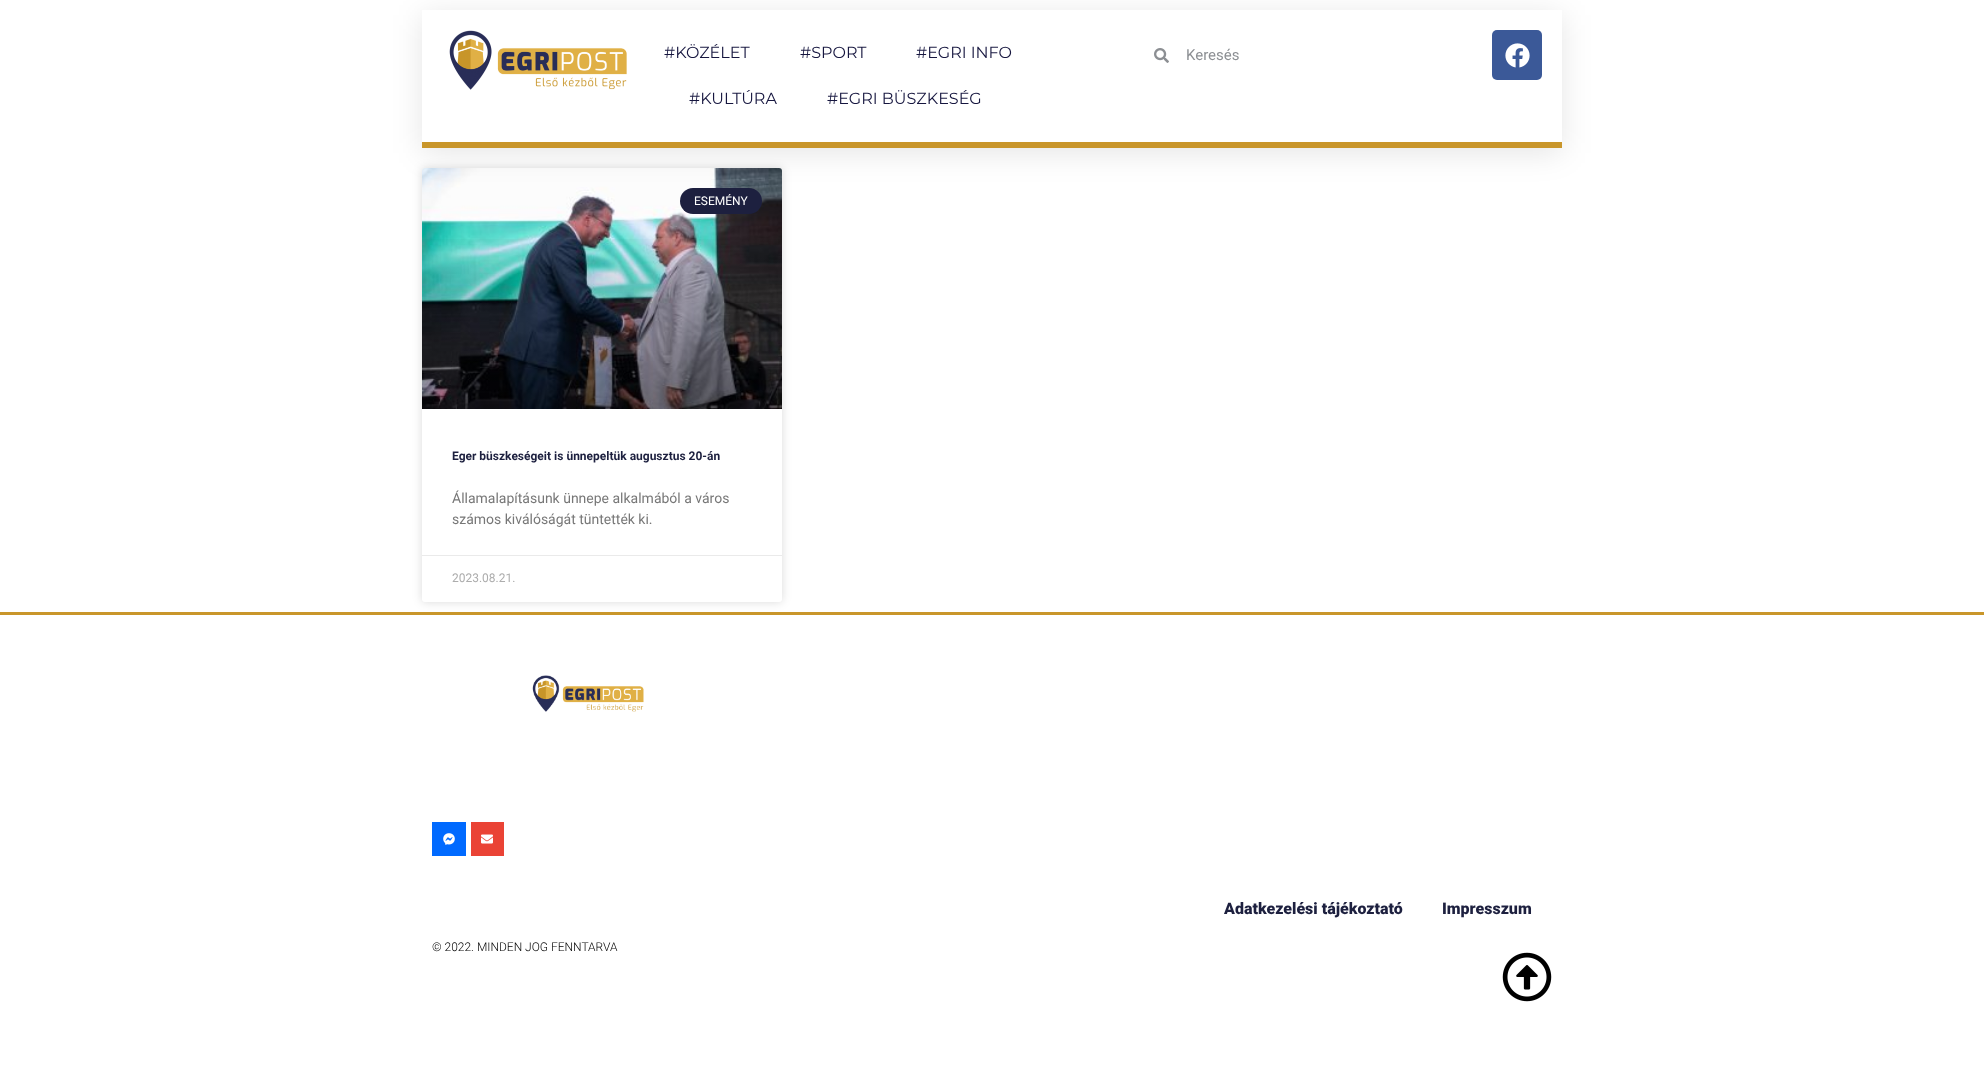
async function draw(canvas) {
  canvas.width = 1984
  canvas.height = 1065
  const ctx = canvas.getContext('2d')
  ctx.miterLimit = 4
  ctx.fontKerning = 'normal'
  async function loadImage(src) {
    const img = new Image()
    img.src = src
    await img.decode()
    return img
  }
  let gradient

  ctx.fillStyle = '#fff'
  ctx.fillRect(0, 0, 1984, 1065)
  ctx.fillStyle = '#00000026'
  ctx.filter = 'blur(5px)'
  ctx.beginPath()
  ctx.roundRect(422, 168, 360, 434, 3)
  ctx.fill()
  ctx.filter = 'none'
  ctx.fillStyle = '#fff'
  ctx.beginPath()
  ctx.roundRect(422, 168, 360, 434, 3)
  ctx.fill()
  ctx.drawImage(await loadImage('image3.png'), 422, 168, 360, 241)
  ctx.fillStyle = '#1d203f'
  ctx.beginPath()
  ctx.roundRect(680, 188, 82, 26, 13)
  ctx.fill()
  ctx.save()
  ctx.beginPath()
  ctx.moveTo(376, 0)
  ctx.lineTo(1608, 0)
  ctx.lineTo(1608, 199)
  ctx.lineTo(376, 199)
  ctx.closePath()
  ctx.moveTo(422, 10)
  ctx.lineTo(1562, 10)
  ctx.lineTo(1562, 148)
  ctx.lineTo(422, 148)
  ctx.closePath()
  ctx.clip('evenodd')
  ctx.fillStyle = '#0000001a'
  ctx.filter = 'blur(15px)'
  ctx.beginPath()
  ctx.rect(422, 15, 1140, 138)
  ctx.fill()
  ctx.filter = 'none'
  ctx.restore()
  ctx.fillStyle = '#c9962a'
  ctx.fillRect(422, 142, 1140, 6)
  ctx.drawImage(await loadImage('image0.png'), 449, 30, 178, 60)
  ctx.font = '16px Montserrat'
  ctx.fillStyle = '#16163f'
  ctx.fillText('#KÖZÉLET', 664, 58)
  ctx.fillText('#SPORT', 800, 58)
  ctx.fillText('#EGRI INFO', 916, 58)
  ctx.fillText('#KULTÚRA', 689, 104)
  ctx.fillText('#EGRI BÜSZKESÉG', 827, 104)
  ctx.drawImage(await loadImage('image1.png'), 1154, 48, 15, 15)
  ctx.font = '15px Roboto'
  ctx.fillStyle = '#8c8f93'
  ctx.fillText('Keresés', 1186, 60)
  ctx.fillStyle = '#3b5998'
  ctx.beginPath()
  ctx.roundRect(1492, 30, 50, 50, 5)
  ctx.fill()
  ctx.drawImage(await loadImage('image2.png'), 1505, 43, 25, 25)
  gradient = ctx.createLinearGradient(602, 409, 602, 168)
  gradient.addColorStop(0, '#00000059')
  gradient.addColorStop(0.75, '#00000000')
  ctx.fillStyle = gradient
  ctx.fillRect(422, 239, 360, 170)
  ctx.font = '12px Roboto'
  ctx.fillStyle = '#fff'
  ctx.fillText('ESEMÉNY', 694, 205)
  ctx.font = 'bold 12px Roboto'
  ctx.fillStyle = '#1d203f'
  ctx.fillText('Eger büszkeségeit is ünnepeltük augusztus 20-án', 452, 460)
  ctx.font = '14px Roboto'
  ctx.fillStyle = '#777'
  ctx.fillText('Államalapításunk ünnepe alkalmából a város', 452, 503)
  ctx.fillText('számos kiválóságát tüntették ki.', 452, 524)
  ctx.fillStyle = '#eaeaea'
  ctx.fillRect(422, 555, 360, 1)
  ctx.font = '12px Roboto'
  ctx.fillStyle = '#adadad'
  ctx.fillText('2023.08.21.', 452, 582)
  ctx.fillStyle = '#c9962a'
  ctx.fillRect(0, 612, 1984, 3)
  ctx.drawImage(await loadImage('image4.png'), 532, 675, 112, 37)
  ctx.fillStyle = '#006aff'
  ctx.fillRect(432, 822, 34, 34)
  ctx.drawImage(await loadImage('image5.png'), 443, 833, 12, 12)
  ctx.fillStyle = '#ea4335'
  ctx.fillRect(471, 822, 33, 34)
  ctx.drawImage(await loadImage('image6.png'), 481, 834, 12, 10)
  ctx.font = '900 16px Roboto'
  ctx.fillStyle = '#1d203f'
  ctx.fillText('Adatkezelési tájékoztató', 1224, 914)
  ctx.fillText('Impresszum', 1442, 914)
  ctx.drawImage(await loadImage('image7.png'), 1502, 952, 50, 50)
  ctx.font = '300 12px Roboto'
  ctx.fillStyle = '#000'
  ctx.fillText('© 2022. MINDEN JOG FENNTARVA', 432, 951)
}

draw(document.querySelector('canvas'))
